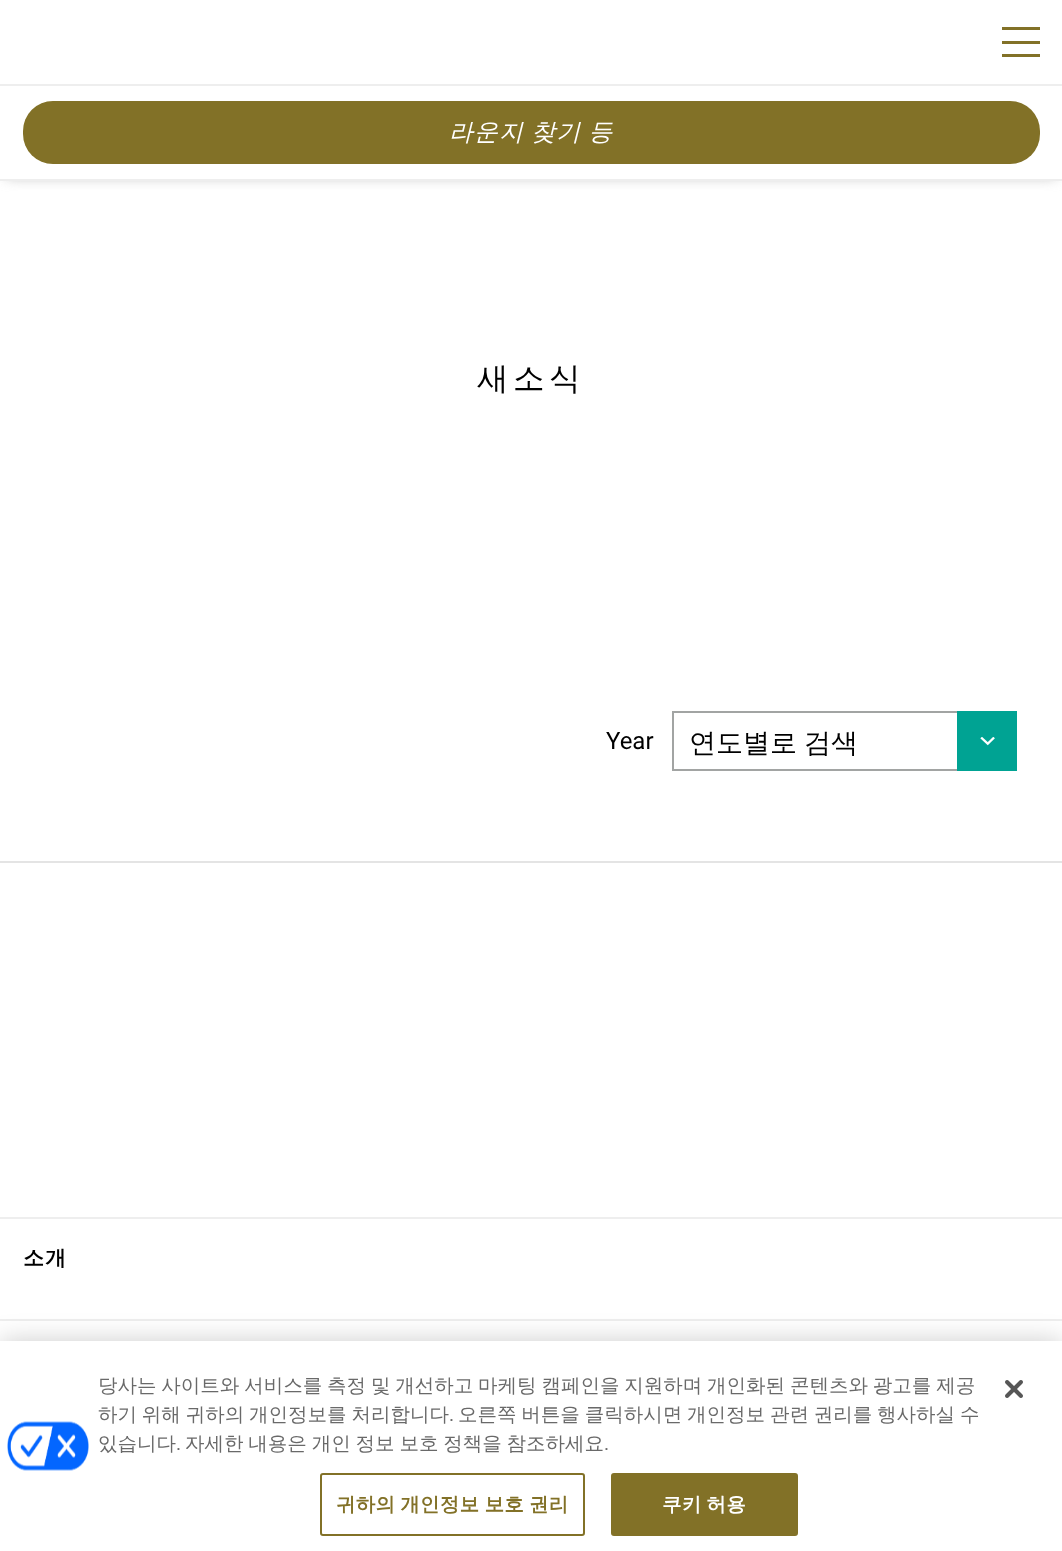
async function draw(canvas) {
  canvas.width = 1062
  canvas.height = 1551
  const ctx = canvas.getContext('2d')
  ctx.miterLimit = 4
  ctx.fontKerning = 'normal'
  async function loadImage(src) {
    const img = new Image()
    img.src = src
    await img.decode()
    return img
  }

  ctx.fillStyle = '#fff'
  ctx.fillRect(0, 0, 1062, 1551)
  ctx.fillStyle = '#a9a9a9'
  ctx.filter = 'blur(7px)'
  ctx.beginPath()
  ctx.rect(6, 8, 1050, 168)
  ctx.fill()
  ctx.filter = 'none'
  ctx.fillStyle = '#fff'
  ctx.fillRect(0, 0, 1062, 179)
  ctx.fillStyle = '#eee'
  ctx.fillRect(0, 179, 1062, 2)
  ctx.fillStyle = '#827127'
  ctx.fillRect(1002, 27, 38, 3)
  ctx.fillRect(1002, 41, 38, 3)
  ctx.fillRect(1002, 54, 38, 3)
  ctx.fillStyle = '#eee'
  ctx.fillRect(0, 84, 1062, 2)
  ctx.fillStyle = '#827127'
  ctx.beginPath()
  ctx.roundRect(23, 101, 1017, 63, 30)
  ctx.fill()
  ctx.letterSpacing = '1px'
  ctx.wordSpacing = '-1px'
  ctx.font = 'italic 500 24px WenQuanYi Zen Hei'
  ctx.fillStyle = '#fff'
  ctx.fillText('라운지 찾기 등', 449, 140)
  ctx.letterSpacing = '4.5px'
  ctx.wordSpacing = '0px'
  ctx.font = '500 31.5px WenQuanYi Zen Hei'
  ctx.fillStyle = '#000'
  ctx.fillText('새소식', 477, 389)
  ctx.letterSpacing = '0px'
  ctx.font = '24px Roboto'
  ctx.fillText('Year', 606, 749)
  ctx.strokeStyle = '#a2a4a3'
  ctx.lineWidth = 2
  ctx.strokeRect(673, 712, 343, 58)
  ctx.wordSpacing = '-1px'
  ctx.font = '500 27px WenQuanYi Zen Hei'
  ctx.fillText('연도별로 검색', 689, 752)
  ctx.fillStyle = '#00a393'
  ctx.fillRect(957, 711, 60, 60)
  ctx.drawImage(await loadImage('image0.png'), 980, 737, 15, 9)
  ctx.fillStyle = '#e4e4e4'
  ctx.fillRect(0, 861, 1062, 2)
  ctx.fillStyle = '#eee'
  ctx.fillRect(0, 1217, 1062, 2)
  ctx.letterSpacing = '1px'
  ctx.wordSpacing = '0px'
  ctx.font = 'bold 21px WenQuanYi Zen Hei'
  ctx.fillStyle = '#000'
  ctx.fillText('소개', 23, 1265)
  ctx.fillStyle = '#eee'
  ctx.fillRect(0, 1319, 1062, 2)
  ctx.fillStyle = '#00000033'
  ctx.filter = 'blur(13.5px)'
  ctx.beginPath()
  ctx.rect(0, 1341, 1062, 210)
  ctx.fill()
  ctx.filter = 'none'
  ctx.fillStyle = '#fff'
  ctx.fillRect(0, 1341, 1062, 210)
  ctx.drawImage(await loadImage('image1.png'), 7, 1421, 82, 50)
  ctx.letterSpacing = '0px'
  ctx.wordSpacing = '-1px'
  ctx.font = '500 19.5px WenQuanYi Zen Hei'
  ctx.fillStyle = '#696969'
  ctx.fillText('당사는 사이트와 서비스를 측정 및 개선하고 마케팅 캠페인을 지원하며 개인화된 콘텐츠와 광고를 제공', 98, 1392)
  ctx.fillText('하기 위해 귀하의 개인정보를 처리합니다', 98, 1421)
  ctx.wordSpacing = '0px'
  ctx.font = '19.5px Roboto'
  ctx.fillText('.', 449, 1421)
  ctx.wordSpacing = '-1px'
  ctx.font = '500 19.5px WenQuanYi Zen Hei'
  ctx.fillText('오른쪽 버튼을 클릭하시면 개인정보 관련 권리를 행사하실 수', 458, 1421)
  ctx.wordSpacing = '0px'
  ctx.fillText('있습니다', 98, 1450)
  ctx.font = '19.5px Roboto'
  ctx.fillText('.', 176, 1450)
  ctx.wordSpacing = '-1px'
  ctx.font = '500 19.5px WenQuanYi Zen Hei'
  ctx.fillText('자세한 내용은 개인 정보 보호 정책을 참조하세요', 185, 1450)
  ctx.wordSpacing = '0px'
  ctx.font = '19.5px Roboto'
  ctx.fillText('.', 604, 1450)
  ctx.beginPath()
  ctx.roundRect(321, 1474, 263, 61, 2)
  ctx.strokeStyle = '#827127'
  ctx.stroke()
  ctx.letterSpacing = '0.25px'
  ctx.wordSpacing = '-1px'
  ctx.font = 'bold 19.5px WenQuanYi Zen Hei'
  ctx.fillStyle = '#827127'
  ctx.fillText('귀하의 개인정보 보호 권리', 336, 1511)
  ctx.beginPath()
  ctx.roundRect(612, 1474, 185, 61, 2)
  ctx.fill()
  ctx.stroke()
  ctx.fillStyle = '#fff'
  ctx.fillText('쿠키 허용', 662, 1511)
  ctx.drawImage(await loadImage('image2.png'), 1005, 1380, 18, 18)
}

draw(document.querySelector('canvas'))
